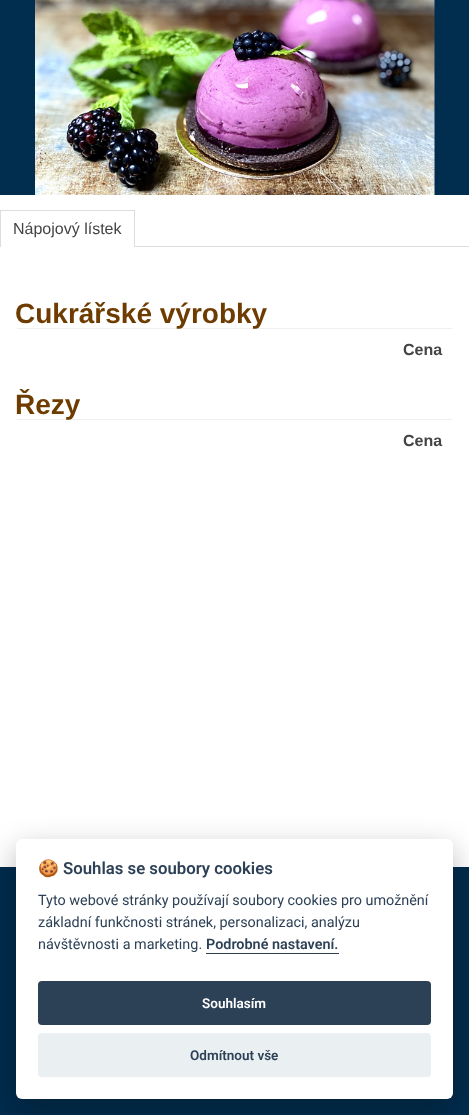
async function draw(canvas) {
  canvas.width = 469
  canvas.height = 1115
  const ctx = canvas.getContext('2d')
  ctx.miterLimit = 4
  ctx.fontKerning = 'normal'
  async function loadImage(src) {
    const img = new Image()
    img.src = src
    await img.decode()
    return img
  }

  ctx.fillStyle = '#fff'
  ctx.fillRect(0, 0, 469, 1115)
  ctx.drawImage(await loadImage('image0.png'), 0, 0, 469, 195)
  ctx.fillStyle = '#ddd'
  ctx.fillRect(135, 246, 334, 1)
  ctx.fillRect(0, 210, 135, 1)
  ctx.fillRect(134, 210, 1, 37)
  ctx.fillRect(0, 210, 1, 37)
  ctx.font = '16px Liberation Sans'
  ctx.fillStyle = '#444'
  ctx.fillText('Nápojový lístek', 13, 234)
  ctx.fillStyle = '#efefef'
  ctx.fillRect(17, 328, 435, 1)
  ctx.font = 'bold 28px Liberation Sans'
  ctx.fillStyle = '#6e3c00'
  ctx.fillText('Cukrářské výrobky', 15, 323)
  ctx.font = 'bold 16px Liberation Sans'
  ctx.fillStyle = '#444'
  ctx.fillText('Cena', 403, 355)
  ctx.fillStyle = '#efefef'
  ctx.fillRect(17, 419, 435, 1)
  ctx.font = 'bold 28px Liberation Sans'
  ctx.fillStyle = '#6e3c00'
  ctx.fillText('Řezy', 15, 414)
  ctx.font = 'bold 16px Liberation Sans'
  ctx.fillStyle = '#444'
  ctx.fillText('Cena', 403, 446)
  ctx.fillStyle = '#002c4d'
  ctx.fillRect(0, 867, 469, 248)
  ctx.fillStyle = '#02020347'
  ctx.filter = 'blur(15px)'
  ctx.beginPath()
  ctx.roundRect(16, 849, 437, 260, 6)
  ctx.fill()
  ctx.filter = 'none'
  ctx.fillStyle = '#fff'
  ctx.beginPath()
  ctx.roundRect(16, 839, 437, 260, 6)
  ctx.fill()
  ctx.font = 'bold 16.75px Noto Color Emoji'
  ctx.fillStyle = '#2d4156'
  ctx.fillText('🍪', 38, 874)
  ctx.font = '600 16.75px Roboto'
  ctx.fillText('Souhlas se soubory cookies', 63, 874)
  ctx.font = '14.4px Roboto'
  ctx.fillText('Tyto webové stránky používají soubory cookies pro umožnění', 38, 905)
  ctx.fillText('základní funkčnosti stránek, personalizaci, analýzu', 38, 927)
  ctx.fillText('návštěvnosti a marketing.', 38, 949)
  ctx.font = '600 14.4px Roboto'
  ctx.fillText('Podrobné nastavení.', 206, 949)
  ctx.fillRect(206, 953, 133, 1)
  ctx.beginPath()
  ctx.roundRect(38, 981, 393, 44, 4)
  ctx.fill()
  ctx.font = '600 13.5px Roboto'
  ctx.fillStyle = '#fff'
  ctx.fillText('Souhlasím', 202, 1008)
  ctx.fillStyle = '#eaeff2'
  ctx.beginPath()
  ctx.roundRect(38, 1033, 393, 44, 4)
  ctx.fill()
  ctx.fillStyle = '#2d4156'
  ctx.fillText('Odmítnout vše', 190, 1060)
}

draw(document.querySelector('canvas'))
